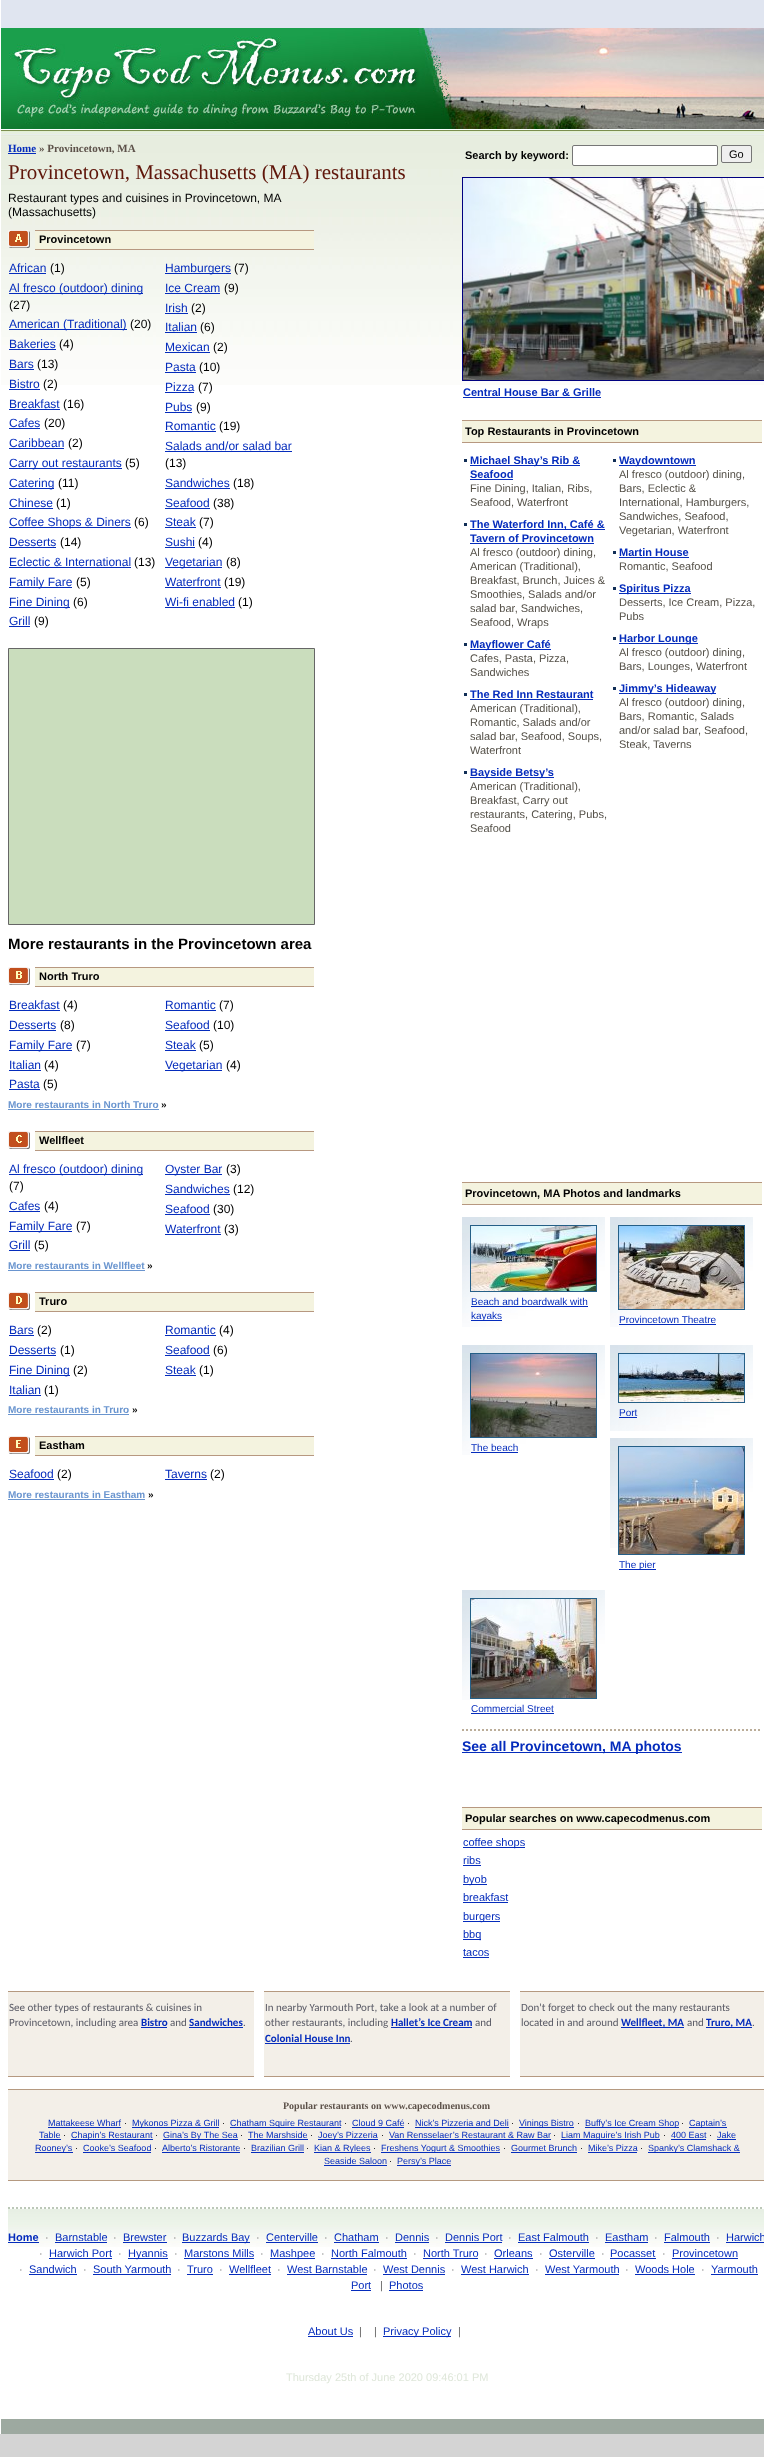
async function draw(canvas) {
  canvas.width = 764
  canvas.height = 2457
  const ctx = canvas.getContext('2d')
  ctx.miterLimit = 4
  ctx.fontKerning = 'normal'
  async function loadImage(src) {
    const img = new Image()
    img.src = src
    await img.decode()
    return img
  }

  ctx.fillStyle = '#d4d4d4'
  ctx.fillRect(0, 0, 764, 2457)
  ctx.fillStyle = '#fff'
  ctx.fillRect(0, 0, 1, 2434)
  ctx.fillRect(1, 385, 763, 2034)
  ctx.drawImage(await loadImage('image0.png'), 1, 129, 763, 256)
  ctx.fillStyle = '#e0e5f0'
  ctx.fillRect(1, 0, 763, 28)
  ctx.drawImage(await loadImage('image1.png'), 1, 28, 763, 101)
  ctx.font = 'bold 11px Liberation Serif'
  ctx.fillStyle = '#052cbc'
  ctx.fillText('Home', 8, 152)
  ctx.fillRect(8, 153, 28, 1)
  ctx.fillStyle = '#5d524a'
  ctx.fillText('» Provincetown, MA', 39, 152)
  ctx.font = '21px Liberation Serif'
  ctx.fillStyle = '#5f160a'
  ctx.fillText('Provincetown, Massachusetts (MA) restaurants', 8, 179)
  ctx.font = '12px Liberation Sans'
  ctx.fillStyle = '#000'
  ctx.fillText('Restaurant types and cuisines in Provincetown, MA', 8, 202)
  ctx.fillText('(Massachusetts)', 8, 216)
  ctx.drawImage(await loadImage('image2.png'), 8, 230, 22, 18)
  ctx.fillStyle = '#f4f3df'
  ctx.fillRect(35, 231, 279, 18)
  ctx.fillStyle = '#b79880'
  ctx.fillRect(35, 230, 279, 1)
  ctx.fillRect(35, 249, 279, 1)
  ctx.font = 'bold 11px Liberation Sans'
  ctx.fillStyle = '#000'
  ctx.fillText('Provincetown', 39, 243)
  ctx.font = '12px Liberation Sans'
  ctx.fillStyle = '#052cbc'
  ctx.fillText('African', 9, 272)
  ctx.fillRect(9, 273, 37, 1)
  ctx.fillStyle = '#000'
  ctx.fillText('(1)', 50, 272)
  ctx.fillStyle = '#052cbc'
  ctx.fillRect(9, 293, 134, 1)
  ctx.fillText('Al fresco (outdoor) dining', 9, 292)
  ctx.fillStyle = '#000'
  ctx.fillText('(27)', 9, 309)
  ctx.fillStyle = '#052cbc'
  ctx.fillRect(9, 329, 118, 1)
  ctx.fillText('American (Traditional)', 9, 328)
  ctx.fillStyle = '#000'
  ctx.fillText('(20)', 130, 328)
  ctx.fillStyle = '#052cbc'
  ctx.fillText('Bakeries', 9, 348)
  ctx.fillRect(9, 349, 47, 1)
  ctx.fillStyle = '#000'
  ctx.fillText('(4)', 59, 348)
  ctx.fillStyle = '#052cbc'
  ctx.fillText('Bars', 9, 368)
  ctx.fillRect(9, 369, 25, 1)
  ctx.fillStyle = '#000'
  ctx.fillText('(13)', 37, 368)
  ctx.fillStyle = '#052cbc'
  ctx.fillText('Bistro', 9, 388)
  ctx.fillRect(9, 389, 31, 1)
  ctx.fillStyle = '#000'
  ctx.fillText('(2)', 43, 388)
  ctx.fillStyle = '#052cbc'
  ctx.fillText('Breakfast', 9, 408)
  ctx.fillRect(9, 409, 51, 1)
  ctx.fillStyle = '#000'
  ctx.fillText('(16)', 63, 408)
  ctx.fillStyle = '#052cbc'
  ctx.fillText('Cafes', 9, 427)
  ctx.fillRect(9, 428, 31, 1)
  ctx.fillStyle = '#000'
  ctx.fillText('(20)', 44, 427)
  ctx.fillStyle = '#052cbc'
  ctx.fillText('Caribbean', 9, 447)
  ctx.fillRect(9, 448, 55, 1)
  ctx.fillStyle = '#000'
  ctx.fillText('(2)', 68, 447)
  ctx.fillStyle = '#052cbc'
  ctx.fillRect(9, 468, 113, 1)
  ctx.fillText('Carry out restaurants', 9, 467)
  ctx.fillStyle = '#000'
  ctx.fillText('(5)', 125, 467)
  ctx.fillStyle = '#052cbc'
  ctx.fillRect(9, 488, 45, 1)
  ctx.fillText('Catering', 9, 487)
  ctx.fillStyle = '#000'
  ctx.fillText('(11)', 58, 487)
  ctx.fillStyle = '#052cbc'
  ctx.fillText('Chinese', 9, 507)
  ctx.fillRect(9, 508, 44, 1)
  ctx.fillStyle = '#000'
  ctx.fillText('(1)', 56, 507)
  ctx.fillStyle = '#052cbc'
  ctx.fillRect(9, 527, 122, 1)
  ctx.fillText('Coffee Shops & Diners', 9, 526)
  ctx.fillStyle = '#000'
  ctx.fillText('(6)', 134, 526)
  ctx.fillStyle = '#052cbc'
  ctx.fillText('Desserts', 9, 546)
  ctx.fillRect(9, 547, 47, 1)
  ctx.fillStyle = '#000'
  ctx.fillText('(14)', 60, 546)
  ctx.fillStyle = '#052cbc'
  ctx.fillText('Eclectic & International', 9, 566)
  ctx.fillRect(9, 567, 122, 1)
  ctx.fillStyle = '#000'
  ctx.fillText('(13)', 134, 566)
  ctx.fillStyle = '#052cbc'
  ctx.fillRect(9, 587, 63, 1)
  ctx.fillText('Family Fare', 9, 586)
  ctx.fillStyle = '#000'
  ctx.fillText('(5)', 76, 586)
  ctx.fillStyle = '#052cbc'
  ctx.fillRect(9, 607, 61, 1)
  ctx.fillText('Fine Dining', 9, 606)
  ctx.fillStyle = '#000'
  ctx.fillText('(6)', 73, 606)
  ctx.fillStyle = '#052cbc'
  ctx.fillText('Grill', 9, 625)
  ctx.fillRect(9, 626, 21, 1)
  ctx.fillStyle = '#000'
  ctx.fillText('(9)', 34, 625)
  ctx.fillStyle = '#052cbc'
  ctx.fillRect(165, 273, 66, 1)
  ctx.fillText('Hamburgers', 165, 272)
  ctx.fillStyle = '#000'
  ctx.fillText('(7)', 234, 272)
  ctx.fillStyle = '#052cbc'
  ctx.fillText('Ice Cream', 165, 292)
  ctx.fillRect(165, 293, 55, 1)
  ctx.fillStyle = '#000'
  ctx.fillText('(9)', 224, 292)
  ctx.fillStyle = '#052cbc'
  ctx.fillText('Irish', 165, 312)
  ctx.fillRect(165, 313, 23, 1)
  ctx.fillStyle = '#000'
  ctx.fillText('(2)', 191, 312)
  ctx.fillStyle = '#052cbc'
  ctx.fillText('Italian', 165, 331)
  ctx.fillRect(165, 332, 32, 1)
  ctx.fillStyle = '#000'
  ctx.fillText('(6)', 200, 331)
  ctx.fillStyle = '#052cbc'
  ctx.fillText('Mexican', 165, 351)
  ctx.fillRect(165, 352, 45, 1)
  ctx.fillStyle = '#000'
  ctx.fillText('(2)', 213, 351)
  ctx.fillStyle = '#052cbc'
  ctx.fillText('Pasta', 165, 371)
  ctx.fillRect(165, 372, 31, 1)
  ctx.fillStyle = '#000'
  ctx.fillText('(10)', 199, 371)
  ctx.fillStyle = '#052cbc'
  ctx.fillText('Pizza', 165, 391)
  ctx.fillRect(165, 392, 29, 1)
  ctx.fillStyle = '#000'
  ctx.fillText('(7)', 198, 391)
  ctx.fillStyle = '#052cbc'
  ctx.fillText('Pubs', 165, 411)
  ctx.fillRect(165, 412, 27, 1)
  ctx.fillStyle = '#000'
  ctx.fillText('(9)', 196, 411)
  ctx.fillStyle = '#052cbc'
  ctx.fillText('Romantic', 165, 430)
  ctx.fillRect(165, 431, 51, 1)
  ctx.fillStyle = '#000'
  ctx.fillText('(19)', 219, 430)
  ctx.fillStyle = '#052cbc'
  ctx.fillText('Salads and/or salad bar', 165, 450)
  ctx.fillRect(165, 451, 127, 1)
  ctx.fillStyle = '#000'
  ctx.fillText('(13)', 165, 467)
  ctx.fillStyle = '#052cbc'
  ctx.fillText('Sandwiches', 165, 487)
  ctx.fillRect(165, 488, 65, 1)
  ctx.fillStyle = '#000'
  ctx.fillText('(18)', 233, 487)
  ctx.fillStyle = '#052cbc'
  ctx.fillText('Seafood', 165, 507)
  ctx.fillRect(165, 508, 45, 1)
  ctx.fillStyle = '#000'
  ctx.fillText('(38)', 213, 507)
  ctx.fillStyle = '#052cbc'
  ctx.fillText('Steak', 165, 526)
  ctx.fillRect(165, 527, 31, 1)
  ctx.fillStyle = '#000'
  ctx.fillText('(7)', 199, 526)
  ctx.fillStyle = '#052cbc'
  ctx.fillText('Sushi', 165, 546)
  ctx.fillRect(165, 547, 30, 1)
  ctx.fillStyle = '#000'
  ctx.fillText('(4)', 198, 546)
  ctx.fillStyle = '#052cbc'
  ctx.fillRect(165, 567, 57, 1)
  ctx.fillText('Vegetarian', 165, 566)
  ctx.fillStyle = '#000'
  ctx.fillText('(8)', 226, 566)
  ctx.fillStyle = '#052cbc'
  ctx.fillText('Waterfront', 165, 586)
  ctx.fillRect(165, 587, 56, 1)
  ctx.fillStyle = '#000'
  ctx.fillText('(19)', 224, 586)
  ctx.fillStyle = '#052cbc'
  ctx.fillText('Wi-fi enabled', 165, 606)
  ctx.fillRect(165, 607, 70, 1)
  ctx.fillStyle = '#000'
  ctx.fillText('(1)', 238, 606)
  ctx.fillStyle = '#caddbd'
  ctx.beginPath()
  ctx.rect(8.5, 648.5, 306, 276)
  ctx.fill()
  ctx.strokeStyle = '#666'
  ctx.stroke()
  ctx.font = 'bold 15px Liberation Sans'
  ctx.fillStyle = '#000'
  ctx.fillText('More restaurants in the Provincetown area', 8, 949)
  ctx.drawImage(await loadImage('image3.png'), 8, 967, 22, 18)
  ctx.fillStyle = '#f4f3df'
  ctx.fillRect(35, 968, 279, 18)
  ctx.fillStyle = '#b79880'
  ctx.fillRect(35, 967, 279, 1)
  ctx.fillRect(35, 986, 279, 1)
  ctx.font = 'bold 11px Liberation Sans'
  ctx.fillStyle = '#000'
  ctx.fillText('North Truro', 39, 980)
  ctx.font = '12px Liberation Sans'
  ctx.fillStyle = '#052cbc'
  ctx.fillText('Breakfast', 9, 1009)
  ctx.fillRect(9, 1010, 51, 1)
  ctx.fillStyle = '#000'
  ctx.fillText('(4)', 63, 1009)
  ctx.fillStyle = '#052cbc'
  ctx.fillText('Desserts', 9, 1029)
  ctx.fillRect(9, 1030, 47, 1)
  ctx.fillStyle = '#000'
  ctx.fillText('(8)', 60, 1029)
  ctx.fillStyle = '#052cbc'
  ctx.fillRect(9, 1050, 63, 1)
  ctx.fillText('Family Fare', 9, 1049)
  ctx.fillStyle = '#000'
  ctx.fillText('(7)', 76, 1049)
  ctx.fillStyle = '#052cbc'
  ctx.fillText('Italian', 9, 1069)
  ctx.fillRect(9, 1070, 32, 1)
  ctx.fillStyle = '#000'
  ctx.fillText('(4)', 44, 1069)
  ctx.fillStyle = '#052cbc'
  ctx.fillText('Pasta', 9, 1088)
  ctx.fillRect(9, 1089, 31, 1)
  ctx.fillStyle = '#000'
  ctx.fillText('(5)', 43, 1088)
  ctx.fillStyle = '#052cbc'
  ctx.fillText('Romantic', 165, 1009)
  ctx.fillRect(165, 1010, 51, 1)
  ctx.fillStyle = '#000'
  ctx.fillText('(7)', 219, 1009)
  ctx.fillStyle = '#052cbc'
  ctx.fillText('Seafood', 165, 1029)
  ctx.fillRect(165, 1030, 45, 1)
  ctx.fillStyle = '#000'
  ctx.fillText('(10)', 213, 1029)
  ctx.fillStyle = '#052cbc'
  ctx.fillText('Steak', 165, 1049)
  ctx.fillRect(165, 1050, 31, 1)
  ctx.fillStyle = '#000'
  ctx.fillText('(5)', 199, 1049)
  ctx.fillStyle = '#052cbc'
  ctx.fillRect(165, 1070, 57, 1)
  ctx.fillText('Vegetarian', 165, 1069)
  ctx.fillStyle = '#000'
  ctx.fillText('(4)', 226, 1069)
  ctx.font = 'bold 10px Liberation Sans'
  ctx.fillStyle = '#6a95cf'
  ctx.fillText('More restaurants in North Truro', 8, 1108)
  ctx.fillRect(8, 1109, 151, 1)
  ctx.fillStyle = '#000'
  ctx.fillText('»', 161, 1108)
  ctx.drawImage(await loadImage('image4.png'), 8, 1131, 22, 18)
  ctx.fillStyle = '#f4f3df'
  ctx.fillRect(35, 1132, 279, 18)
  ctx.fillStyle = '#b79880'
  ctx.fillRect(35, 1131, 279, 1)
  ctx.fillRect(35, 1150, 279, 1)
  ctx.font = 'bold 11px Liberation Sans'
  ctx.fillStyle = '#000'
  ctx.fillText('Wellfleet', 39, 1144)
  ctx.fillStyle = '#052cbc'
  ctx.fillRect(9, 1174, 134, 1)
  ctx.font = '12px Liberation Sans'
  ctx.fillText('Al fresco (outdoor) dining', 9, 1173)
  ctx.fillStyle = '#000'
  ctx.fillText('(7)', 9, 1190)
  ctx.fillStyle = '#052cbc'
  ctx.fillText('Cafes', 9, 1210)
  ctx.fillRect(9, 1211, 31, 1)
  ctx.fillStyle = '#000'
  ctx.fillText('(4)', 44, 1210)
  ctx.fillStyle = '#052cbc'
  ctx.fillRect(9, 1231, 63, 1)
  ctx.fillText('Family Fare', 9, 1230)
  ctx.fillStyle = '#000'
  ctx.fillText('(7)', 76, 1230)
  ctx.fillStyle = '#052cbc'
  ctx.fillText('Grill', 9, 1249)
  ctx.fillRect(9, 1250, 21, 1)
  ctx.fillStyle = '#000'
  ctx.fillText('(5)', 34, 1249)
  ctx.fillStyle = '#052cbc'
  ctx.fillRect(165, 1174, 57, 1)
  ctx.fillText('Oyster Bar', 165, 1173)
  ctx.fillStyle = '#000'
  ctx.fillText('(3)', 226, 1173)
  ctx.fillStyle = '#052cbc'
  ctx.fillText('Sandwiches', 165, 1193)
  ctx.fillRect(165, 1194, 65, 1)
  ctx.fillStyle = '#000'
  ctx.fillText('(12)', 233, 1193)
  ctx.fillStyle = '#052cbc'
  ctx.fillText('Seafood', 165, 1213)
  ctx.fillRect(165, 1214, 45, 1)
  ctx.fillStyle = '#000'
  ctx.fillText('(30)', 213, 1213)
  ctx.fillStyle = '#052cbc'
  ctx.fillText('Waterfront', 165, 1233)
  ctx.fillRect(165, 1234, 56, 1)
  ctx.fillStyle = '#000'
  ctx.fillText('(3)', 224, 1233)
  ctx.font = 'bold 10px Liberation Sans'
  ctx.fillStyle = '#6a95cf'
  ctx.fillText('More restaurants in Wellfleet', 8, 1269)
  ctx.fillRect(8, 1270, 137, 1)
  ctx.fillStyle = '#000'
  ctx.fillText('»', 147, 1269)
  ctx.drawImage(await loadImage('image5.png'), 8, 1292, 22, 18)
  ctx.fillStyle = '#f4f3df'
  ctx.fillRect(35, 1293, 279, 18)
  ctx.fillStyle = '#b79880'
  ctx.fillRect(35, 1292, 279, 1)
  ctx.fillRect(35, 1311, 279, 1)
  ctx.font = 'bold 11px Liberation Sans'
  ctx.fillStyle = '#000'
  ctx.fillText('Truro', 39, 1305)
  ctx.font = '12px Liberation Sans'
  ctx.fillStyle = '#052cbc'
  ctx.fillText('Bars', 9, 1334)
  ctx.fillRect(9, 1335, 25, 1)
  ctx.fillStyle = '#000'
  ctx.fillText('(2)', 37, 1334)
  ctx.fillStyle = '#052cbc'
  ctx.fillText('Desserts', 9, 1354)
  ctx.fillRect(9, 1355, 47, 1)
  ctx.fillStyle = '#000'
  ctx.fillText('(1)', 60, 1354)
  ctx.fillStyle = '#052cbc'
  ctx.fillRect(9, 1375, 61, 1)
  ctx.fillText('Fine Dining', 9, 1374)
  ctx.fillStyle = '#000'
  ctx.fillText('(2)', 73, 1374)
  ctx.fillStyle = '#052cbc'
  ctx.fillText('Italian', 9, 1394)
  ctx.fillRect(9, 1395, 32, 1)
  ctx.fillStyle = '#000'
  ctx.fillText('(1)', 44, 1394)
  ctx.fillStyle = '#052cbc'
  ctx.fillText('Romantic', 165, 1334)
  ctx.fillRect(165, 1335, 51, 1)
  ctx.fillStyle = '#000'
  ctx.fillText('(4)', 219, 1334)
  ctx.fillStyle = '#052cbc'
  ctx.fillText('Seafood', 165, 1354)
  ctx.fillRect(165, 1355, 45, 1)
  ctx.fillStyle = '#000'
  ctx.fillText('(6)', 213, 1354)
  ctx.fillStyle = '#052cbc'
  ctx.fillText('Steak', 165, 1374)
  ctx.fillRect(165, 1375, 31, 1)
  ctx.fillStyle = '#000'
  ctx.fillText('(1)', 199, 1374)
  ctx.font = 'bold 10px Liberation Sans'
  ctx.fillStyle = '#6a95cf'
  ctx.fillText('More restaurants in Truro', 8, 1413)
  ctx.fillRect(8, 1414, 121, 1)
  ctx.fillStyle = '#000'
  ctx.fillText('»', 132, 1413)
  ctx.drawImage(await loadImage('image6.png'), 8, 1436, 22, 18)
  ctx.fillStyle = '#f4f3df'
  ctx.fillRect(35, 1437, 279, 18)
  ctx.fillStyle = '#b79880'
  ctx.fillRect(35, 1436, 279, 1)
  ctx.fillRect(35, 1455, 279, 1)
  ctx.font = 'bold 11px Liberation Sans'
  ctx.fillStyle = '#000'
  ctx.fillText('Eastham', 39, 1449)
  ctx.font = '12px Liberation Sans'
  ctx.fillStyle = '#052cbc'
  ctx.fillText('Seafood', 9, 1478)
  ctx.fillRect(9, 1479, 45, 1)
  ctx.fillStyle = '#000'
  ctx.fillText('(2)', 57, 1478)
  ctx.fillStyle = '#052cbc'
  ctx.fillText('Taverns', 165, 1478)
  ctx.fillRect(165, 1479, 42, 1)
  ctx.fillStyle = '#000'
  ctx.fillText('(2)', 210, 1478)
  ctx.font = 'bold 10px Liberation Sans'
  ctx.fillStyle = '#6a95cf'
  ctx.fillText('More restaurants in Eastham', 8, 1498)
  ctx.fillRect(8, 1499, 137, 1)
  ctx.fillStyle = '#000'
  ctx.fillText('»', 148, 1498)
  ctx.font = 'bold 11px Liberation Sans'
  ctx.fillText('Search by keyword:', 465, 159)
  ctx.fillStyle = '#fff'
  ctx.beginPath()
  ctx.roundRect(572.5, 145.5, 145, 20, 1.5)
  ctx.fill()
  ctx.strokeStyle = '#767676'
  ctx.stroke()
  ctx.fillStyle = '#efefef'
  ctx.beginPath()
  ctx.roundRect(721.5, 145.5, 30, 17, 1.5)
  ctx.fill()
  ctx.stroke()
  ctx.font = '11px Liberation Sans'
  ctx.fillStyle = '#000'
  ctx.fillText('Go', 729, 158)
  ctx.strokeStyle = '#000080'
  ctx.strokeRect(462.5, 177.5, 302, 203)
  ctx.drawImage(await loadImage('image7.png'), 463, 178, 301, 202)
  ctx.font = 'bold 11px Liberation Sans'
  ctx.fillStyle = '#052cbc'
  ctx.fillText('Central House Bar & Grille', 463, 396)
  ctx.fillRect(463, 397, 138, 1)
  ctx.fillStyle = '#f4f3df'
  ctx.fillRect(462, 421, 300, 21)
  ctx.fillStyle = '#b79880'
  ctx.fillRect(462, 420, 300, 1)
  ctx.fillRect(462, 442, 300, 1)
  ctx.fillStyle = '#000'
  ctx.fillText('Top Restaurants in Provincetown', 465, 435)
  ctx.fillStyle = '#112e56'
  ctx.fillRect(464, 459, 3, 3)
  ctx.fillStyle = '#052cbc'
  ctx.fillRect(470, 465, 110, 1)
  ctx.fillText('Michael Shay’s Rib &', 470, 464)
  ctx.fillText('Seafood', 470, 478)
  ctx.fillRect(470, 479, 43, 1)
  ctx.font = '11px Liberation Sans'
  ctx.fillStyle = '#545048'
  ctx.fillText('Fine Dining, Italian, Ribs,', 470, 492)
  ctx.fillText('Seafood, Waterfront', 470, 506)
  ctx.fillStyle = '#112e56'
  ctx.fillRect(464, 523, 3, 3)
  ctx.fillStyle = '#052cbc'
  ctx.fillRect(470, 529, 135, 1)
  ctx.font = 'bold 11px Liberation Sans'
  ctx.fillText('The Waterford Inn, Café &', 470, 528)
  ctx.fillText('Tavern of Provincetown', 470, 542)
  ctx.fillRect(470, 543, 124, 1)
  ctx.font = '11px Liberation Sans'
  ctx.fillStyle = '#545048'
  ctx.fillText('Al fresco (outdoor) dining,', 470, 556)
  ctx.fillText('American (Traditional),', 470, 570)
  ctx.fillText('Breakfast, Brunch, Juices &', 470, 584)
  ctx.fillText('Smoothies, Salads and/or', 470, 598)
  ctx.fillText('salad bar, Sandwiches,', 470, 612)
  ctx.fillText('Seafood, Wraps', 470, 626)
  ctx.fillStyle = '#112e56'
  ctx.fillRect(464, 643, 3, 3)
  ctx.fillStyle = '#052cbc'
  ctx.fillRect(470, 649, 81, 1)
  ctx.font = 'bold 11px Liberation Sans'
  ctx.fillText('Mayflower Café', 470, 648)
  ctx.font = '11px Liberation Sans'
  ctx.fillStyle = '#545048'
  ctx.fillText('Cafes, Pasta, Pizza,', 470, 662)
  ctx.fillText('Sandwiches', 470, 676)
  ctx.fillStyle = '#112e56'
  ctx.fillRect(464, 693, 3, 3)
  ctx.font = 'bold 11px Liberation Sans'
  ctx.fillStyle = '#052cbc'
  ctx.fillText('The Red Inn Restaurant', 470, 698)
  ctx.fillRect(470, 699, 123, 1)
  ctx.font = '11px Liberation Sans'
  ctx.fillStyle = '#545048'
  ctx.fillText('American (Traditional),', 470, 712)
  ctx.fillText('Romantic, Salads and/or', 470, 726)
  ctx.fillText('salad bar, Seafood, Soups,', 470, 740)
  ctx.fillText('Waterfront', 470, 754)
  ctx.fillStyle = '#112e56'
  ctx.fillRect(464, 771, 3, 3)
  ctx.fillStyle = '#052cbc'
  ctx.fillRect(470, 777, 84, 1)
  ctx.font = 'bold 11px Liberation Sans'
  ctx.fillText('Bayside Betsy’s', 470, 776)
  ctx.font = '11px Liberation Sans'
  ctx.fillStyle = '#545048'
  ctx.fillText('American (Traditional),', 470, 790)
  ctx.fillText('Breakfast, Carry out', 470, 804)
  ctx.fillText('restaurants, Catering, Pubs,', 470, 818)
  ctx.fillText('Seafood', 470, 832)
  ctx.fillStyle = '#112e56'
  ctx.fillRect(613, 459, 3, 3)
  ctx.fillStyle = '#052cbc'
  ctx.fillRect(619, 465, 77, 1)
  ctx.font = 'bold 11px Liberation Sans'
  ctx.fillText('Waydowntown', 619, 464)
  ctx.font = '11px Liberation Sans'
  ctx.fillStyle = '#545048'
  ctx.fillText('Al fresco (outdoor) dining,', 619, 478)
  ctx.fillText('Bars, Eclectic &', 619, 492)
  ctx.fillText('International, Hamburgers,', 619, 506)
  ctx.fillText('Sandwiches, Seafood,', 619, 520)
  ctx.fillText('Vegetarian, Waterfront', 619, 534)
  ctx.fillStyle = '#112e56'
  ctx.fillRect(613, 551, 3, 3)
  ctx.font = 'bold 11px Liberation Sans'
  ctx.fillStyle = '#052cbc'
  ctx.fillText('Martin House', 619, 556)
  ctx.fillRect(619, 557, 70, 1)
  ctx.font = '11px Liberation Sans'
  ctx.fillStyle = '#545048'
  ctx.fillText('Romantic, Seafood', 619, 570)
  ctx.fillStyle = '#112e56'
  ctx.fillRect(613, 587, 3, 3)
  ctx.fillStyle = '#052cbc'
  ctx.fillRect(619, 593, 72, 1)
  ctx.font = 'bold 11px Liberation Sans'
  ctx.fillText('Spiritus Pizza', 619, 592)
  ctx.font = '11px Liberation Sans'
  ctx.fillStyle = '#545048'
  ctx.fillText('Desserts, Ice Cream, Pizza,', 619, 606)
  ctx.fillText('Pubs', 619, 620)
  ctx.fillStyle = '#112e56'
  ctx.fillRect(613, 637, 3, 3)
  ctx.fillStyle = '#052cbc'
  ctx.fillRect(619, 643, 79, 1)
  ctx.font = 'bold 11px Liberation Sans'
  ctx.fillText('Harbor Lounge', 619, 642)
  ctx.font = '11px Liberation Sans'
  ctx.fillStyle = '#545048'
  ctx.fillText('Al fresco (outdoor) dining,', 619, 656)
  ctx.fillText('Bars, Lounges, Waterfront', 619, 670)
  ctx.fillStyle = '#112e56'
  ctx.fillRect(613, 687, 3, 3)
  ctx.fillStyle = '#052cbc'
  ctx.fillRect(619, 693, 97, 1)
  ctx.font = 'bold 11px Liberation Sans'
  ctx.fillText('Jimmy’s Hideaway', 619, 692)
  ctx.font = '11px Liberation Sans'
  ctx.fillStyle = '#545048'
  ctx.fillText('Al fresco (outdoor) dining,', 619, 706)
  ctx.fillText('Bars, Romantic, Salads', 619, 720)
  ctx.fillText('and/or salad bar, Seafood,', 619, 734)
  ctx.fillText('Steak, Taverns', 619, 748)
  ctx.fillStyle = '#f4f3df'
  ctx.fillRect(462, 1183, 300, 21)
  ctx.fillStyle = '#b79880'
  ctx.fillRect(462, 1182, 300, 1)
  ctx.fillRect(462, 1204, 300, 1)
  ctx.font = 'bold 11px Liberation Sans'
  ctx.fillStyle = '#000'
  ctx.fillText('Provincetown, MA Photos and landmarks', 465, 1197)
  ctx.drawImage(await loadImage('image8.png'), 462, 1217, 143, 110)
  ctx.strokeStyle = '#255f87'
  ctx.strokeRect(470.5, 1225.5, 126, 66)
  ctx.drawImage(await loadImage('image9.png'), 471, 1226, 125, 65)
  ctx.font = '10px Liberation Sans'
  ctx.fillStyle = '#052cbc'
  ctx.fillText('Beach and boardwalk with', 471, 1305)
  ctx.fillRect(471, 1306, 117, 1)
  ctx.fillRect(471, 1320, 31, 1)
  ctx.fillText('kayaks', 471, 1319)
  ctx.drawImage(await loadImage('image8.png'), 610, 1217, 143, 110)
  ctx.strokeRect(618.5, 1225.5, 126, 84)
  ctx.drawImage(await loadImage('image10.png'), 619, 1226, 125, 83)
  ctx.fillText('Provincetown Theatre', 619, 1323)
  ctx.fillRect(619, 1324, 97, 1)
  ctx.drawImage(await loadImage('image11.png'), 610, 1345, 143, 86)
  ctx.strokeRect(618.5, 1353.5, 126, 49)
  ctx.drawImage(await loadImage('image12.png'), 619, 1354, 125, 48)
  ctx.fillText('Port', 619, 1416)
  ctx.fillRect(619, 1417, 18, 1)
  ctx.drawImage(await loadImage('image8.png'), 462, 1345, 143, 110)
  ctx.strokeRect(470.5, 1353.5, 126, 84)
  ctx.drawImage(await loadImage('image13.png'), 471, 1354, 125, 83)
  ctx.fillText('The beach', 471, 1451)
  ctx.fillRect(471, 1452, 47, 1)
  ctx.drawImage(await loadImage('image8.png'), 610, 1438, 143, 110)
  ctx.strokeRect(618.5, 1446.5, 126, 108)
  ctx.drawImage(await loadImage('image14.png'), 619, 1447, 125, 107)
  ctx.fillRect(619, 1569, 37, 1)
  ctx.fillText('The pier', 619, 1568)
  ctx.drawImage(await loadImage('image8.png'), 462, 1590, 143, 110)
  ctx.strokeRect(470.5, 1598.5, 126, 100)
  ctx.drawImage(await loadImage('image15.png'), 471, 1599, 125, 99)
  ctx.fillText('Commercial Street', 471, 1712)
  ctx.fillRect(471, 1713, 83, 1)
  ctx.beginPath()
  ctx.moveTo(462, 1730)
  ctx.lineTo(762, 1730)
  ctx.strokeStyle = '#bbad99'
  ctx.lineWidth = 2
  ctx.setLineDash([2, 2])
  ctx.stroke()
  ctx.fillRect(462, 1752, 220, 1)
  ctx.font = 'bold 14px Liberation Sans'
  ctx.fillText('See all Provincetown, MA photos', 462, 1751)
  ctx.fillStyle = '#f4f3df'
  ctx.fillRect(462, 1808, 300, 21)
  ctx.fillStyle = '#b79880'
  ctx.fillRect(462, 1807, 300, 1)
  ctx.fillRect(462, 1829, 300, 1)
  ctx.font = 'bold 11px Liberation Sans'
  ctx.fillStyle = '#000'
  ctx.fillText('Popular searches on www.capecodmenus.com', 465, 1822)
  ctx.fillStyle = '#052cbc'
  ctx.fillRect(463, 1847, 62, 1)
  ctx.font = '11px Liberation Sans'
  ctx.fillText('coffee shops', 463, 1846)
  ctx.fillText('ribs', 463, 1864)
  ctx.fillRect(463, 1865, 18, 1)
  ctx.fillRect(463, 1884, 24, 1)
  ctx.fillText('byob', 463, 1883)
  ctx.fillText('breakfast', 463, 1901)
  ctx.fillRect(463, 1902, 45, 1)
  ctx.fillRect(463, 1921, 37, 1)
  ctx.fillText('burgers', 463, 1920)
  ctx.fillRect(463, 1939, 18, 1)
  ctx.fillText('bbq', 463, 1938)
  ctx.fillText('tacos', 463, 1956)
  ctx.fillRect(463, 1957, 26, 1)
  ctx.fillStyle = '#f3efe8'
  ctx.fillRect(8, 1992, 246, 84)
  ctx.fillStyle = '#b59980'
  ctx.fillRect(8, 1991, 246, 1)
  ctx.fillRect(8, 2076, 246, 1)
  ctx.font = '11px Carlito'
  ctx.fillStyle = '#5a5b66'
  ctx.fillText('See other types of restaurants & cuisines in', 9, 2011)
  ctx.fillText('Provincetown, including area', 9, 2026)
  ctx.font = 'bold 11px Carlito'
  ctx.fillStyle = '#052cbc'
  ctx.fillText('Bistro', 141, 2026)
  ctx.fillRect(141, 2027, 26, 1)
  ctx.font = '11px Carlito'
  ctx.fillStyle = '#5a5b66'
  ctx.fillText('and', 170, 2026)
  ctx.font = 'bold 11px Carlito'
  ctx.fillStyle = '#052cbc'
  ctx.fillText('Sandwiches', 189, 2026)
  ctx.fillRect(189, 2027, 54, 1)
  ctx.font = '11px Carlito'
  ctx.fillStyle = '#5a5b66'
  ctx.fillText('.', 243, 2026)
  ctx.fillStyle = '#f3efe8'
  ctx.fillRect(264, 1992, 246, 84)
  ctx.fillStyle = '#b59980'
  ctx.fillRect(264, 1991, 246, 1)
  ctx.fillRect(264, 2076, 246, 1)
  ctx.fillStyle = '#5a5b66'
  ctx.fillText('In nearby Yarmouth Port, take a look at a number of', 265, 2011)
  ctx.fillText('other restaurants, including', 265, 2026)
  ctx.font = 'bold 11px Carlito'
  ctx.fillStyle = '#052cbc'
  ctx.fillText('Hallet’s Ice Cream', 391, 2026)
  ctx.fillRect(391, 2027, 81, 1)
  ctx.font = '11px Carlito'
  ctx.fillStyle = '#5a5b66'
  ctx.fillText('and', 475, 2026)
  ctx.font = 'bold 11px Carlito'
  ctx.fillStyle = '#052cbc'
  ctx.fillText('Colonial House Inn', 265, 2042)
  ctx.fillRect(265, 2043, 85, 1)
  ctx.font = '11px Carlito'
  ctx.fillStyle = '#5a5b66'
  ctx.fillText('.', 350, 2042)
  ctx.fillStyle = '#f3efe8'
  ctx.fillRect(520, 1992, 244, 84)
  ctx.fillStyle = '#b59980'
  ctx.fillRect(520, 1991, 244, 1)
  ctx.fillRect(520, 2076, 244, 1)
  ctx.fillStyle = '#5a5b66'
  ctx.fillText('Don\'t forget to check out the many restaurants', 521, 2011)
  ctx.fillText('located in and around', 521, 2026)
  ctx.fillStyle = '#052cbc'
  ctx.fillRect(621, 2027, 63, 1)
  ctx.font = 'bold 11px Carlito'
  ctx.fillText('Wellfleet, MA', 621, 2026)
  ctx.font = '11px Carlito'
  ctx.fillStyle = '#5a5b66'
  ctx.fillText('and', 687, 2026)
  ctx.fillStyle = '#052cbc'
  ctx.fillRect(706, 2027, 46, 1)
  ctx.font = 'bold 11px Carlito'
  ctx.fillText('Truro, MA', 706, 2026)
  ctx.font = '11px Carlito'
  ctx.fillStyle = '#5a5b66'
  ctx.fillText('.', 752, 2026)
  ctx.fillStyle = '#f3efe8'
  ctx.fillRect(8, 2090, 756, 90)
  ctx.fillStyle = '#b59980'
  ctx.fillRect(8, 2089, 756, 1)
  ctx.fillRect(8, 2180, 756, 1)
  ctx.font = 'bold 10px Liberation Serif'
  ctx.fillStyle = '#5d524a'
  ctx.fillText('Popular restaurants on www.capecodmenus.com', 283, 2109)
  ctx.font = '9px Liberation Sans'
  ctx.fillStyle = '#052cbc'
  ctx.fillText('Mattakeese Wharf', 48, 2126)
  ctx.fillRect(48, 2127, 73, 1)
  ctx.fillStyle = '#000'
  ctx.fillText('·', 124, 2126)
  ctx.fillStyle = '#052cbc'
  ctx.fillRect(132, 2127, 87, 1)
  ctx.fillText('Mykonos Pizza & Grill', 132, 2126)
  ctx.fillStyle = '#000'
  ctx.fillText('·', 222, 2126)
  ctx.fillStyle = '#052cbc'
  ctx.fillRect(230, 2127, 111, 1)
  ctx.fillText('Chatham Squire Restaurant', 230, 2126)
  ctx.fillStyle = '#000'
  ctx.fillText('·', 344, 2126)
  ctx.fillStyle = '#052cbc'
  ctx.fillText('Cloud 9 Café', 352, 2126)
  ctx.fillRect(352, 2127, 52, 1)
  ctx.fillStyle = '#000'
  ctx.fillText('·', 407, 2126)
  ctx.fillStyle = '#052cbc'
  ctx.fillText('Nick’s Pizzeria and Deli', 415, 2126)
  ctx.fillRect(415, 2127, 94, 1)
  ctx.fillStyle = '#000'
  ctx.fillText('·', 511, 2126)
  ctx.fillStyle = '#052cbc'
  ctx.fillRect(519, 2127, 55, 1)
  ctx.fillText('Vinings Bistro', 519, 2126)
  ctx.fillStyle = '#000'
  ctx.fillText('·', 577, 2126)
  ctx.fillStyle = '#052cbc'
  ctx.fillRect(585, 2127, 94, 1)
  ctx.fillText('Buffy’s Ice Cream Shop', 585, 2126)
  ctx.fillStyle = '#000'
  ctx.fillText('·', 681, 2126)
  ctx.fillStyle = '#052cbc'
  ctx.fillRect(689, 2127, 38, 1)
  ctx.fillText('Captain’s', 689, 2126)
  ctx.fillText('Table', 39, 2138)
  ctx.fillRect(39, 2139, 22, 1)
  ctx.fillStyle = '#000'
  ctx.fillText('·', 63, 2138)
  ctx.fillStyle = '#052cbc'
  ctx.fillRect(71, 2139, 82, 1)
  ctx.fillText('Chapin’s Restaurant', 71, 2138)
  ctx.fillStyle = '#000'
  ctx.fillText('·', 155, 2138)
  ctx.fillStyle = '#052cbc'
  ctx.fillRect(163, 2139, 75, 1)
  ctx.fillText('Gina’s By The Sea', 163, 2138)
  ctx.fillStyle = '#000'
  ctx.fillText('·', 240, 2138)
  ctx.fillStyle = '#052cbc'
  ctx.fillText('The Marshside', 248, 2138)
  ctx.fillRect(248, 2139, 60, 1)
  ctx.fillStyle = '#000'
  ctx.fillText('·', 310, 2138)
  ctx.fillStyle = '#052cbc'
  ctx.fillRect(318, 2139, 60, 1)
  ctx.fillText('Joey’s Pizzeria', 318, 2138)
  ctx.fillStyle = '#000'
  ctx.fillText('·', 381, 2138)
  ctx.fillStyle = '#052cbc'
  ctx.fillText('Van Rensselaer’s Restaurant & Raw Bar', 389, 2138)
  ctx.fillRect(389, 2139, 162, 1)
  ctx.fillStyle = '#000'
  ctx.fillText('·', 553, 2138)
  ctx.fillStyle = '#052cbc'
  ctx.fillRect(561, 2139, 99, 1)
  ctx.fillText('Liam Maguire’s Irish Pub', 561, 2138)
  ctx.fillStyle = '#000'
  ctx.fillText('·', 663, 2138)
  ctx.fillStyle = '#052cbc'
  ctx.fillText('400 East', 671, 2138)
  ctx.fillRect(671, 2139, 35, 1)
  ctx.fillStyle = '#000'
  ctx.fillText('·', 709, 2138)
  ctx.fillStyle = '#052cbc'
  ctx.fillText('Jake', 717, 2138)
  ctx.fillRect(717, 2139, 19, 1)
  ctx.fillRect(35, 2152, 38, 1)
  ctx.fillText('Rooney’s', 35, 2151)
  ctx.fillStyle = '#000'
  ctx.fillText('·', 75, 2151)
  ctx.fillStyle = '#052cbc'
  ctx.fillText('Cooke’s Seafood', 83, 2151)
  ctx.fillRect(83, 2152, 68, 1)
  ctx.fillStyle = '#000'
  ctx.fillText('·', 154, 2151)
  ctx.fillStyle = '#052cbc'
  ctx.fillText('Alberto’s Ristorante', 162, 2151)
  ctx.fillRect(162, 2152, 78, 1)
  ctx.fillStyle = '#000'
  ctx.fillText('·', 243, 2151)
  ctx.fillStyle = '#052cbc'
  ctx.fillText('Brazilian Grill', 251, 2151)
  ctx.fillRect(251, 2152, 53, 1)
  ctx.fillStyle = '#000'
  ctx.fillText('·', 306, 2151)
  ctx.fillStyle = '#052cbc'
  ctx.fillRect(314, 2152, 57, 1)
  ctx.fillText('Kian & Rylees', 314, 2151)
  ctx.fillStyle = '#000'
  ctx.fillText('·', 373, 2151)
  ctx.fillStyle = '#052cbc'
  ctx.fillRect(381, 2152, 119, 1)
  ctx.fillText('Freshens Yogurt & Smoothies', 381, 2151)
  ctx.fillStyle = '#000'
  ctx.fillText('·', 503, 2151)
  ctx.fillStyle = '#052cbc'
  ctx.fillText('Gourmet Brunch', 511, 2151)
  ctx.fillRect(511, 2152, 66, 1)
  ctx.fillStyle = '#000'
  ctx.fillText('·', 580, 2151)
  ctx.fillStyle = '#052cbc'
  ctx.fillText('Mike’s Pizza', 588, 2151)
  ctx.fillRect(588, 2152, 49, 1)
  ctx.fillStyle = '#000'
  ctx.fillText('·', 640, 2151)
  ctx.fillStyle = '#052cbc'
  ctx.fillRect(648, 2152, 92, 1)
  ctx.fillText('Spanky’s Clamshack &', 648, 2151)
  ctx.fillText('Seaside Saloon', 324, 2164)
  ctx.fillRect(324, 2165, 63, 1)
  ctx.fillStyle = '#000'
  ctx.fillText('·', 389, 2164)
  ctx.fillStyle = '#052cbc'
  ctx.fillRect(397, 2165, 54, 1)
  ctx.fillText('Persy’s Place', 397, 2164)
  ctx.drawImage(await loadImage('image16.png'), 8, 2209, 756, 38)
  ctx.beginPath()
  ctx.moveTo(8, 2208)
  ctx.lineTo(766, 2208)
  ctx.strokeStyle = '#bcc8b8'
  ctx.stroke()
  ctx.font = 'bold 11px Liberation Sans'
  ctx.fillText('Home', 8, 2241)
  ctx.fillRect(8, 2242, 31, 1)
  ctx.font = '11px Liberation Sans'
  ctx.fillStyle = '#666'
  ctx.fillText('·', 45, 2241)
  ctx.fillStyle = '#052cbc'
  ctx.fillText('Barnstable', 55, 2241)
  ctx.fillRect(55, 2242, 52, 1)
  ctx.fillStyle = '#666'
  ctx.fillText('·', 113, 2241)
  ctx.fillStyle = '#052cbc'
  ctx.fillText('Brewster', 123, 2241)
  ctx.fillRect(123, 2242, 44, 1)
  ctx.fillStyle = '#666'
  ctx.fillText('·', 173, 2241)
  ctx.fillStyle = '#052cbc'
  ctx.fillRect(182, 2242, 68, 1)
  ctx.fillText('Buzzards Bay', 182, 2241)
  ctx.fillStyle = '#666'
  ctx.fillText('·', 256, 2241)
  ctx.fillStyle = '#052cbc'
  ctx.fillText('Centerville', 266, 2241)
  ctx.fillRect(266, 2242, 52, 1)
  ctx.fillStyle = '#666'
  ctx.fillText('·', 324, 2241)
  ctx.fillStyle = '#052cbc'
  ctx.fillText('Chatham', 334, 2241)
  ctx.fillRect(334, 2242, 45, 1)
  ctx.fillStyle = '#666'
  ctx.fillText('·', 385, 2241)
  ctx.fillStyle = '#052cbc'
  ctx.fillText('Dennis', 395, 2241)
  ctx.fillRect(395, 2242, 34, 1)
  ctx.fillStyle = '#666'
  ctx.fillText('·', 435, 2241)
  ctx.fillStyle = '#052cbc'
  ctx.fillText('Dennis Port', 445, 2241)
  ctx.fillRect(445, 2242, 57, 1)
  ctx.fillStyle = '#666'
  ctx.fillText('·', 508, 2241)
  ctx.fillStyle = '#052cbc'
  ctx.fillText('East Falmouth', 518, 2241)
  ctx.fillRect(518, 2242, 71, 1)
  ctx.fillStyle = '#666'
  ctx.fillText('·', 595, 2241)
  ctx.fillStyle = '#052cbc'
  ctx.fillText('Eastham', 605, 2241)
  ctx.fillRect(605, 2242, 43, 1)
  ctx.fillStyle = '#666'
  ctx.fillText('·', 654, 2241)
  ctx.fillStyle = '#052cbc'
  ctx.fillText('Falmouth', 664, 2241)
  ctx.fillRect(664, 2242, 46, 1)
  ctx.fillStyle = '#666'
  ctx.fillText('·', 716, 2241)
  ctx.fillStyle = '#052cbc'
  ctx.fillText('Harwich', 726, 2241)
  ctx.fillRect(726, 2242, 38, 1)
  ctx.fillStyle = '#666'
  ctx.fillText('·', 39, 2257)
  ctx.fillStyle = '#052cbc'
  ctx.fillText('Harwich Port', 49, 2257)
  ctx.fillRect(49, 2258, 63, 1)
  ctx.fillStyle = '#666'
  ctx.fillText('·', 118, 2257)
  ctx.fillStyle = '#052cbc'
  ctx.fillRect(128, 2258, 40, 1)
  ctx.fillText('Hyannis', 128, 2257)
  ctx.fillStyle = '#666'
  ctx.fillText('·', 174, 2257)
  ctx.fillStyle = '#052cbc'
  ctx.fillText('Marstons Mills', 184, 2257)
  ctx.fillRect(184, 2258, 70, 1)
  ctx.fillStyle = '#666'
  ctx.fillText('·', 260, 2257)
  ctx.fillStyle = '#052cbc'
  ctx.fillRect(270, 2258, 45, 1)
  ctx.fillText('Mashpee', 270, 2257)
  ctx.fillStyle = '#666'
  ctx.fillText('·', 321, 2257)
  ctx.fillStyle = '#052cbc'
  ctx.fillText('North Falmouth', 331, 2257)
  ctx.fillRect(331, 2258, 76, 1)
  ctx.fillStyle = '#666'
  ctx.fillText('·', 413, 2257)
  ctx.fillStyle = '#052cbc'
  ctx.fillText('North Truro', 423, 2257)
  ctx.fillRect(423, 2258, 55, 1)
  ctx.fillStyle = '#666'
  ctx.fillText('·', 484, 2257)
  ctx.fillStyle = '#052cbc'
  ctx.fillText('Orleans', 494, 2257)
  ctx.fillRect(494, 2258, 39, 1)
  ctx.fillStyle = '#666'
  ctx.fillText('·', 539, 2257)
  ctx.fillStyle = '#052cbc'
  ctx.fillText('Osterville', 549, 2257)
  ctx.fillRect(549, 2258, 46, 1)
  ctx.fillStyle = '#666'
  ctx.fillText('·', 601, 2257)
  ctx.fillStyle = '#052cbc'
  ctx.fillText('Pocasset', 610, 2257)
  ctx.fillRect(610, 2258, 46, 1)
  ctx.fillStyle = '#666'
  ctx.fillText('·', 662, 2257)
  ctx.fillStyle = '#052cbc'
  ctx.fillText('Provincetown', 672, 2257)
  ctx.fillRect(672, 2258, 66, 1)
  ctx.fillStyle = '#666'
  ctx.fillText('·', 19, 2273)
  ctx.fillStyle = '#052cbc'
  ctx.fillText('Sandwich', 29, 2273)
  ctx.fillRect(29, 2274, 48, 1)
  ctx.fillStyle = '#666'
  ctx.fillText('·', 83, 2273)
  ctx.fillStyle = '#052cbc'
  ctx.fillText('South Yarmouth', 93, 2273)
  ctx.fillRect(93, 2274, 78, 1)
  ctx.fillStyle = '#666'
  ctx.fillText('·', 177, 2273)
  ctx.fillStyle = '#052cbc'
  ctx.fillText('Truro', 187, 2273)
  ctx.fillRect(187, 2274, 26, 1)
  ctx.fillStyle = '#666'
  ctx.fillText('·', 219, 2273)
  ctx.fillStyle = '#052cbc'
  ctx.fillText('Wellfleet', 229, 2273)
  ctx.fillRect(229, 2274, 42, 1)
  ctx.fillStyle = '#666'
  ctx.fillText('·', 277, 2273)
  ctx.fillStyle = '#052cbc'
  ctx.fillText('West Barnstable', 287, 2273)
  ctx.fillRect(287, 2274, 80, 1)
  ctx.fillStyle = '#666'
  ctx.fillText('·', 373, 2273)
  ctx.fillStyle = '#052cbc'
  ctx.fillText('West Dennis', 383, 2273)
  ctx.fillRect(383, 2274, 62, 1)
  ctx.fillStyle = '#666'
  ctx.fillText('·', 451, 2273)
  ctx.fillStyle = '#052cbc'
  ctx.fillText('West Harwich', 461, 2273)
  ctx.fillRect(461, 2274, 68, 1)
  ctx.fillStyle = '#666'
  ctx.fillText('·', 535, 2273)
  ctx.fillStyle = '#052cbc'
  ctx.fillText('West Yarmouth', 545, 2273)
  ctx.fillRect(545, 2274, 74, 1)
  ctx.fillStyle = '#666'
  ctx.fillText('·', 625, 2273)
  ctx.fillStyle = '#052cbc'
  ctx.fillText('Woods Hole', 635, 2273)
  ctx.fillRect(635, 2274, 60, 1)
  ctx.fillStyle = '#666'
  ctx.fillText('·', 701, 2273)
  ctx.fillStyle = '#052cbc'
  ctx.fillText('Yarmouth', 711, 2273)
  ctx.fillRect(711, 2274, 47, 1)
  ctx.fillText('Port', 351, 2289)
  ctx.fillRect(351, 2290, 20, 1)
  ctx.fillStyle = '#666'
  ctx.fillText('|', 380, 2289)
  ctx.fillStyle = '#052cbc'
  ctx.fillText('Photos', 389, 2289)
  ctx.fillRect(389, 2290, 34, 1)
  ctx.fillText('About Us', 308, 2335)
  ctx.fillRect(308, 2336, 45, 1)
  ctx.fillStyle = '#666'
  ctx.fillText('|', 359, 2335)
  ctx.fillText('|', 374, 2335)
  ctx.fillStyle = '#052cbc'
  ctx.fillRect(383, 2336, 68, 1)
  ctx.fillText('Privacy Policy', 383, 2335)
  ctx.fillStyle = '#666'
  ctx.fillText('|', 458, 2335)
  ctx.fillStyle = '#dfe7da'
  ctx.fillText('Thursday 25th of June 2020 09:46:01 PM', 286, 2381)
  ctx.fillStyle = '#9da9a0'
  ctx.fillRect(1, 2419, 763, 15)
}

draw(document.querySelector('canvas'))
